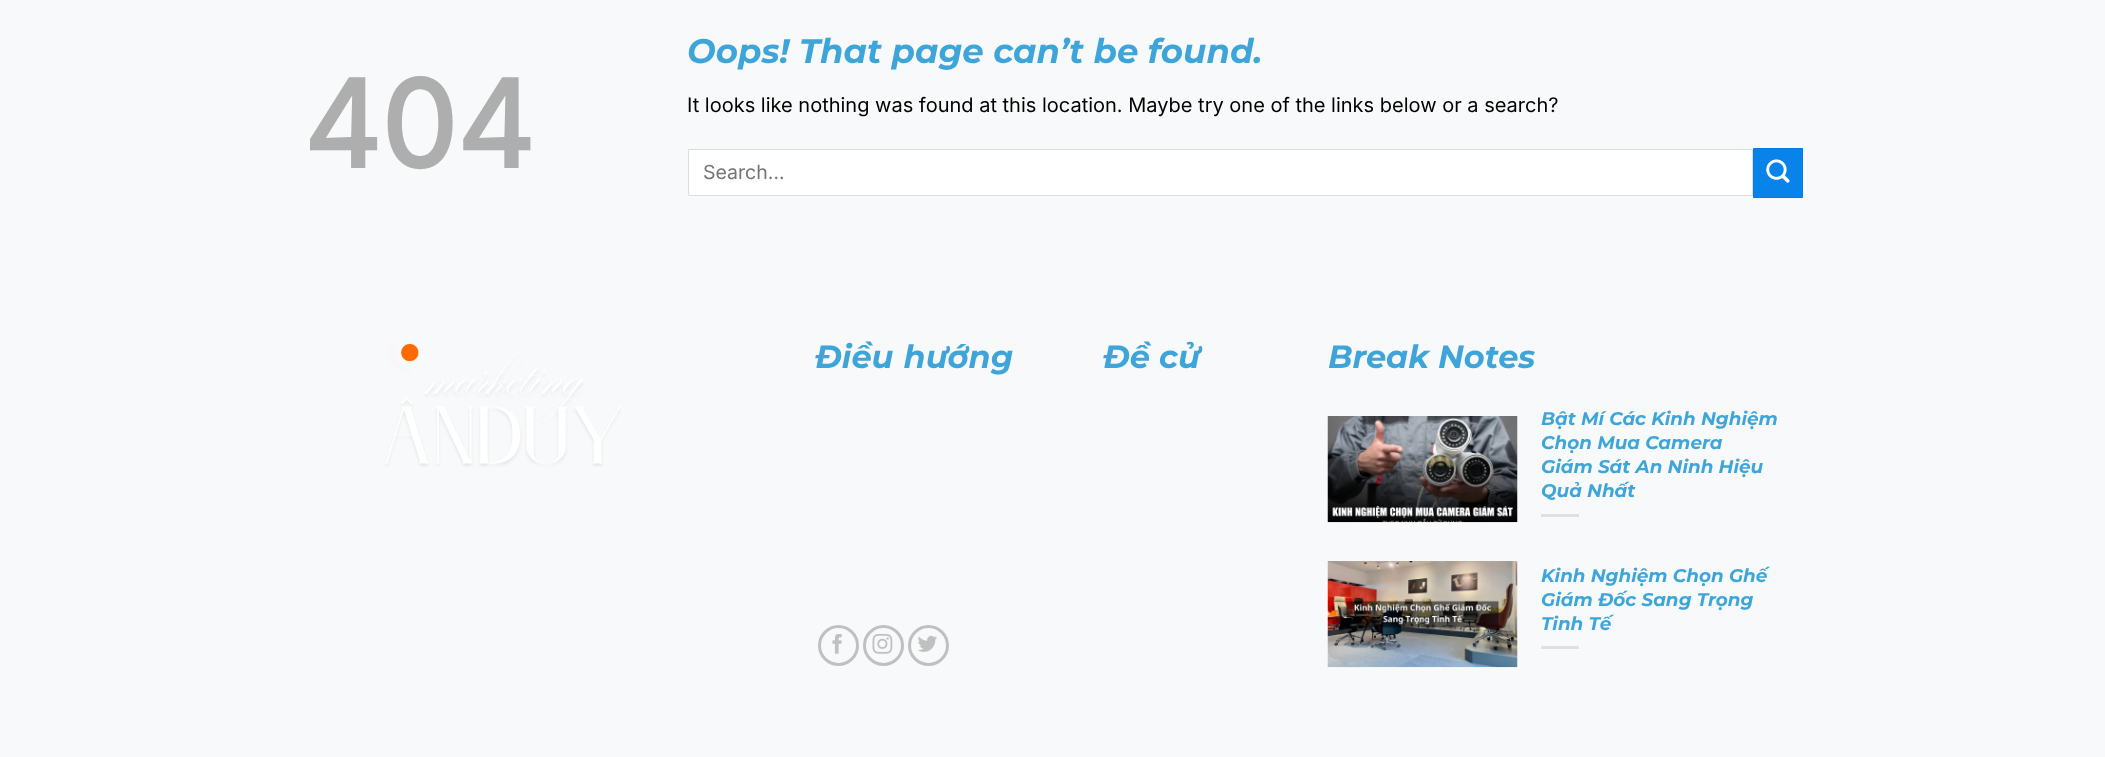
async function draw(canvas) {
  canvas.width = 2105
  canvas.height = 757
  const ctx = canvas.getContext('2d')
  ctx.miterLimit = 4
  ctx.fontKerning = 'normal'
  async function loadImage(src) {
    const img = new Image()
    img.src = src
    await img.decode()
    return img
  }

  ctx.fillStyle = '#f8f9fa'
  ctx.fillRect(0, 0, 2105, 757)
  ctx.font = 'bold 120px Inter'
  ctx.fillStyle = '#aeaeaf'
  ctx.fillText('404', 303, 168)
  ctx.font = 'italic bold 34px Montserrat'
  ctx.fillStyle = '#3da5d9'
  ctx.fillText('Oops! That page can’t be found.', 687, 63)
  ctx.font = '20px Inter'
  ctx.fillStyle = '#000'
  ctx.fillText('It looks like nothing was found at this location. Maybe try one of the links below or a search?', 687, 112)
  ctx.fillStyle = '#fff'
  ctx.beginPath()
  ctx.rect(688.5, 149.5, 1064, 46)
  ctx.fill()
  ctx.strokeStyle = '#ddd'
  ctx.stroke()
  ctx.font = '19.5px Inter'
  ctx.fillStyle = '#757575'
  ctx.fillText('Search…', 703, 179)
  ctx.fillStyle = '#0883ea'
  ctx.beginPath()
  ctx.rect(1753.5, 148.5, 49, 49)
  ctx.fill()
  ctx.strokeStyle = '#087cde'
  ctx.stroke()
  ctx.drawImage(await loadImage('image0.png'), 1766, 159, 24, 24)
  ctx.drawImage(await loadImage('image1.png'), 385, 343, 236, 124)
  ctx.wordSpacing = '1px'
  ctx.font = 'italic bold 32px Montserrat'
  ctx.fillStyle = '#3da5d9'
  ctx.fillText('Điều hướng', 815, 368)
  ctx.beginPath()
  ctx.arc(838.5, 645.5, 19, 0, 2 * Math.PI)
  ctx.strokeStyle = '#c0c0c0'
  ctx.lineWidth = 3
  ctx.stroke()
  ctx.drawImage(await loadImage('image2.png'), 832, 634, 10, 20)
  ctx.beginPath()
  ctx.arc(883.5, 645.5, 19, 0, 2 * Math.PI)
  ctx.stroke()
  ctx.drawImage(await loadImage('image3.png'), 872, 634, 21, 20)
  ctx.beginPath()
  ctx.arc(928.5, 645.5, 19, 0, 2 * Math.PI)
  ctx.stroke()
  ctx.drawImage(await loadImage('image4.png'), 918, 635, 19, 17)
  ctx.wordSpacing = '0px'
  ctx.fillText('Đề cử', 1103, 368)
  ctx.fillText('Break Notes', 1328, 368)
  ctx.drawImage(await loadImage('image5.png'), 1327, 416, 191, 107)
  ctx.font = 'italic bold 18.4px Montserrat'
  ctx.fillText('Bật Mí Các Kinh Nghiệm', 1541, 425)
  ctx.fillText('Chọn Mua Camera', 1541, 449)
  ctx.fillText('Giám Sát An Ninh Hiệu', 1541, 473)
  ctx.fillText('Quả Nhất', 1541, 497)
  ctx.fillStyle = '#dfe0e1'
  ctx.fillRect(1541, 514, 38, 3)
  ctx.drawImage(await loadImage('image6.png'), 1327, 561, 191, 107)
  ctx.fillStyle = '#3da5d9'
  ctx.fillText('Kinh Nghiệm Chọn Ghế', 1541, 582)
  ctx.fillText('Giám Đốc Sang Trọng', 1541, 606)
  ctx.fillText('Tinh Tế', 1541, 630)
  ctx.fillStyle = '#dfe0e1'
  ctx.fillRect(1541, 646, 38, 3)
}

draw(document.querySelector('canvas'))
